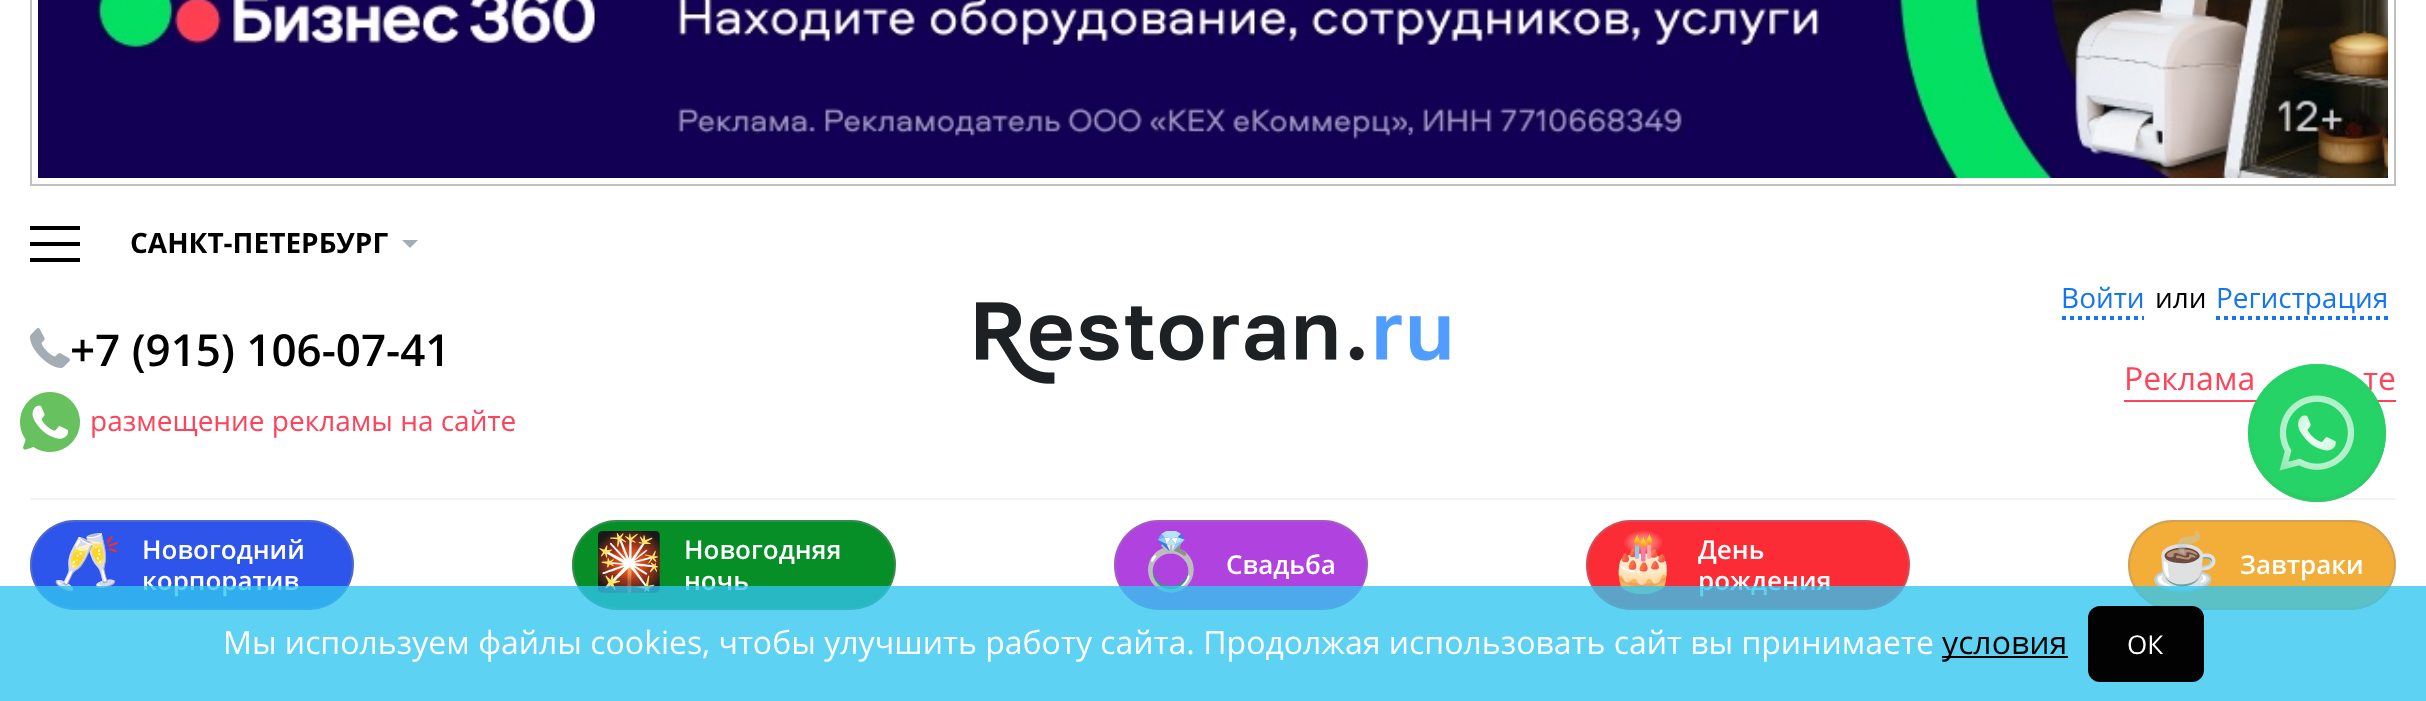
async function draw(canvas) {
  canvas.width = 2426
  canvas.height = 701
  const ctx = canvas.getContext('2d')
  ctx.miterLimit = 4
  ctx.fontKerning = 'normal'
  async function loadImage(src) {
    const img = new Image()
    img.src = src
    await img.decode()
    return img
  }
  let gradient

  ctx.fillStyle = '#fff'
  ctx.fillRect(0, 0, 2426, 701)
  ctx.strokeStyle = '#c0c0c0'
  ctx.lineWidth = 2
  ctx.strokeRect(31, -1, 2364, 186)
  ctx.drawImage(await loadImage('image0.png'), 38, 0, 2350, 178)
  ctx.fillStyle = '#f2f3f7'
  ctx.fillRect(30, 498, 2366, 2)
  ctx.fillStyle = '#000'
  ctx.fillRect(30, 226, 50, 4)
  ctx.fillRect(30, 242, 50, 4)
  ctx.fillRect(30, 258, 50, 4)
  ctx.font = 'bold 28px Open Sans'
  ctx.fillText('САНКТ-ПЕТЕРБУРГ', 130, 253)
  ctx.fillStyle = '#a4adb4'
  ctx.beginPath()
  ctx.moveTo(418, 240)
  ctx.lineTo(410, 248)
  ctx.lineTo(402, 240)
  ctx.fill('evenodd')
  ctx.drawImage(await loadImage('image1.png'), 30, 328, 40, 40)
  ctx.font = '600 44px Open Sans'
  ctx.fillStyle = '#000'
  ctx.fillText('+7 (915) 106-07-41', 70, 366)
  ctx.drawImage(await loadImage('image2.png'), 20, 392, 60, 60)
  ctx.font = '28px Open Sans'
  ctx.fillStyle = '#ff435a'
  ctx.fillText('размещение рекламы на сайте', 90, 431)
  ctx.drawImage(await loadImage('image3.png'), 976, 302, 474, 82)
  ctx.beginPath()
  ctx.moveTo(2062, 318)
  ctx.lineTo(2144, 318)
  ctx.strokeStyle = '#1475f2'
  ctx.lineWidth = 4
  ctx.setLineDash([4, 4])
  ctx.stroke()
  ctx.fillStyle = '#1475f2'
  ctx.fillText('Войти', 2061, 308)
  ctx.fillStyle = '#000'
  ctx.fillText('или', 2155, 308)
  ctx.beginPath()
  ctx.moveTo(2216, 318)
  ctx.lineTo(2388, 318)
  ctx.stroke()
  ctx.fillStyle = '#1475f2'
  ctx.fillText('Регистрация', 2216, 308)
  ctx.fillStyle = '#ff435a'
  ctx.fillRect(2124, 400, 272, 2)
  ctx.font = '32px Open Sans'
  ctx.fillText('Реклама', 2124, 390)
  ctx.fillText('те', 2363, 390)
  ctx.fillStyle = '#2d55eb'
  ctx.beginPath()
  ctx.roundRect(30, 520, 324, 90, 45)
  ctx.fill()
  ctx.beginPath()
  ctx.roundRect(31, 521, 322, 88, 44)
  ctx.strokeStyle = '#8e8c8c59'
  ctx.lineWidth = 2
  ctx.setLineDash([])
  ctx.stroke()
  ctx.font = '56px Noto Color Emoji'
  ctx.fillStyle = '#fff'
  ctx.fillText('🥂', 52, 581)
  ctx.font = '600 26px Open Sans'
  ctx.fillText('Новогодний', 142, 559)
  ctx.fillText('корпоратив', 142, 590)
  ctx.fillStyle = '#068e27'
  ctx.beginPath()
  ctx.roundRect(572, 520, 324, 90, 45)
  ctx.fill()
  ctx.beginPath()
  ctx.roundRect(573, 521, 322, 88, 44)
  ctx.stroke()
  ctx.font = '56px Noto Color Emoji'
  ctx.fillStyle = '#fff'
  ctx.fillText('🎇', 594, 581)
  ctx.font = '600 26px Open Sans'
  ctx.fillText('Новогодняя', 684, 559)
  ctx.fillText('ночь', 684, 590)
  ctx.fillStyle = '#b043e0'
  ctx.beginPath()
  ctx.roundRect(1114, 520, 254, 90, 45)
  ctx.fill()
  ctx.beginPath()
  ctx.roundRect(1115, 521, 252, 88, 44)
  ctx.stroke()
  ctx.font = '56px Noto Color Emoji'
  ctx.fillStyle = '#fff'
  ctx.fillText('💍', 1136, 581)
  ctx.font = '600 26px Open Sans'
  ctx.fillText('Свадьба', 1226, 574)
  ctx.fillStyle = '#fb2c36'
  ctx.beginPath()
  ctx.roundRect(1586, 520, 324, 90, 45)
  ctx.fill()
  ctx.beginPath()
  ctx.roundRect(1587, 521, 322, 88, 44)
  ctx.stroke()
  ctx.font = '56px Noto Color Emoji'
  ctx.fillStyle = '#fff'
  ctx.fillText('🎂', 1608, 581)
  ctx.font = '600 26px Open Sans'
  ctx.fillText('День', 1698, 559)
  ctx.fillText('рождения', 1698, 590)
  ctx.fillStyle = '#f3ad39'
  ctx.beginPath()
  ctx.roundRect(2128, 520, 268, 90, 45)
  ctx.fill()
  ctx.beginPath()
  ctx.roundRect(2129, 521, 266, 88, 44)
  ctx.stroke()
  ctx.font = '56px Noto Color Emoji'
  ctx.fillStyle = '#fff'
  ctx.fillText('☕️', 2150, 581)
  ctx.font = '600 26px Open Sans'
  ctx.fillText('Завтраки', 2240, 574)
  gradient = ctx.createLinearGradient(2317, 364, 2317, 502)
  gradient.addColorStop(0, '#24d366')
  gradient.addColorStop(1, '#3bb96a')
  ctx.fillStyle = gradient
  ctx.beginPath()
  ctx.arc(2317, 433, 69, 0, 2 * Math.PI)
  ctx.fill()
  ctx.fillStyle = '#25d366'
  ctx.beginPath()
  ctx.arc(2317, 433, 65, 0, 2 * Math.PI)
  ctx.fill()
  ctx.drawImage(await loadImage('image4.png'), 2279, 395, 76, 76)
  gradient = ctx.createRadialGradient(2317, 433, 0, 2317, 433, 98)
  gradient.addColorStop(0, '#25d36600')
  gradient.addColorStop(1, '#25d366')
  ctx.fillStyle = gradient
  ctx.beginPath()
  ctx.arc(2317, 433, 69, 0, 2 * Math.PI)
  ctx.fill()
  ctx.fillStyle = '#31c5f0c7'
  ctx.fillRect(0, 586, 2426, 115)
  ctx.font = '32px Open Sans'
  ctx.fillStyle = '#fff'
  ctx.fillText('Мы используем файлы cookies, чтобы улучшить работу сайта. Продолжая использовать сайт вы принимаете', 223, 654)
  ctx.fillStyle = '#000'
  ctx.fillRect(1942, 656, 126, 2)
  ctx.fillText('условия', 1942, 654)
  ctx.fillStyle = '#020202'
  ctx.beginPath()
  ctx.roundRect(2088, 606, 116, 76, 12)
  ctx.fill()
  ctx.font = '26px Open Sans'
  ctx.fillStyle = '#fff'
  ctx.fillText('ОК', 2127, 654)
}

draw(document.querySelector('canvas'))
